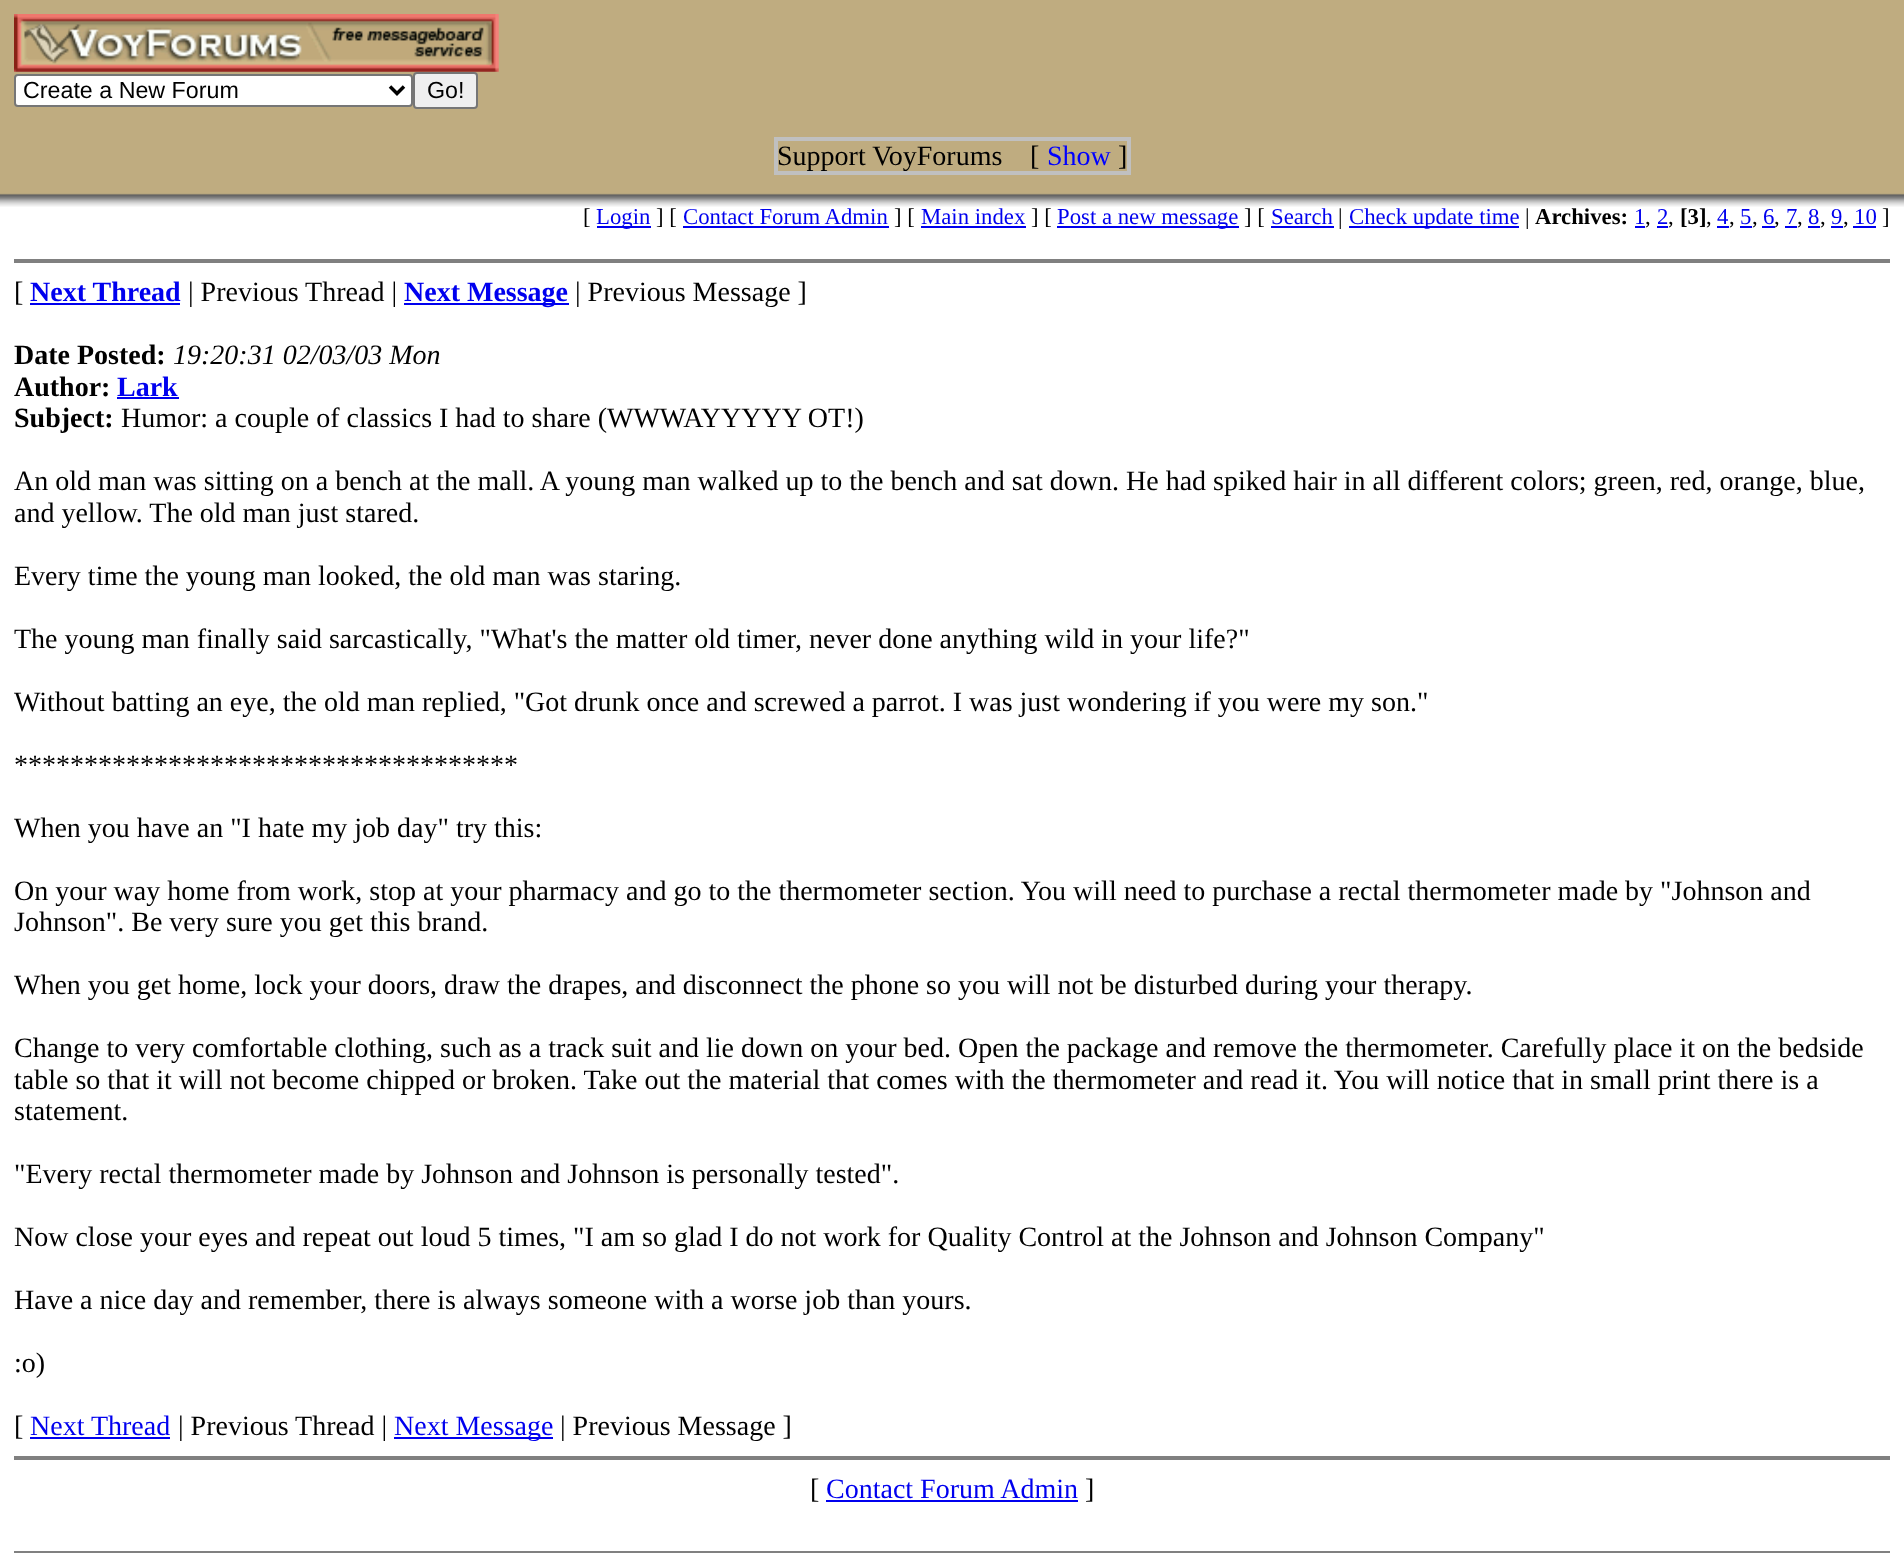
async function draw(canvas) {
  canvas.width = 1904
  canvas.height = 1559
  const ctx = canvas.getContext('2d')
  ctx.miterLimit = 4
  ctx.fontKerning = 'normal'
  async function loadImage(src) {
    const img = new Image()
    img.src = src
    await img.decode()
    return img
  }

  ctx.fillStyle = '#fff'
  ctx.fillRect(0, 0, 1904, 1559)
  ctx.drawImage(await loadImage('image0.png'), 0, 0, 1904, 207)
  ctx.drawImage(await loadImage('image1.png'), 14, 14, 485, 58)
  ctx.beginPath()
  ctx.roundRect(15, 75, 397, 31, 3)
  ctx.fill()
  ctx.strokeStyle = '#767676'
  ctx.lineWidth = 2
  ctx.stroke()
  ctx.beginPath()
  ctx.moveTo(390, 86.5)
  ctx.lineTo(397, 93.5)
  ctx.lineTo(404, 86.5)
  ctx.strokeStyle = '#000'
  ctx.lineWidth = 3.5
  ctx.stroke()
  ctx.font = '23.25px Liberation Sans'
  ctx.fillStyle = '#000'
  ctx.fillText('Create a New Forum', 23, 98)
  ctx.fillStyle = '#efefef'
  ctx.beginPath()
  ctx.roundRect(414, 73, 63, 35, 3)
  ctx.fill()
  ctx.strokeStyle = '#767676'
  ctx.lineWidth = 2
  ctx.stroke()
  ctx.fillStyle = '#000'
  ctx.fillText('Go!', 427, 98)
  ctx.strokeStyle = '#c0c0c0'
  ctx.lineWidth = 4
  ctx.strokeRect(776, 139, 353, 34)
  ctx.font = '28px Liberation Serif'
  ctx.fillText('Support VoyForums', 777, 165)
  ctx.fillText('[', 1030, 165)
  ctx.fillStyle = '#00f'
  ctx.fillText('Show', 1047, 165)
  ctx.fillStyle = '#000'
  ctx.fillText(']', 1118, 165)
  ctx.font = '22.75px Liberation Serif'
  ctx.fillText('[', 583, 224)
  ctx.fillStyle = '#00e'
  ctx.fillRect(597, 226, 54, 2)
  ctx.fillText('Login', 596, 224)
  ctx.fillStyle = '#000'
  ctx.fillText('] [', 656, 224)
  ctx.fillStyle = '#00e'
  ctx.fillText('Contact Forum Admin', 683, 224)
  ctx.fillRect(683, 226, 206, 2)
  ctx.fillStyle = '#000'
  ctx.fillText('] [', 894, 224)
  ctx.fillStyle = '#00e'
  ctx.fillText('Main index', 921, 224)
  ctx.fillRect(921, 226, 105, 2)
  ctx.fillStyle = '#000'
  ctx.fillText('] [', 1031, 224)
  ctx.fillStyle = '#00e'
  ctx.fillRect(1057, 226, 182, 2)
  ctx.fillText('Post a new message', 1057, 224)
  ctx.fillStyle = '#000'
  ctx.fillText('] [', 1244, 224)
  ctx.fillStyle = '#00e'
  ctx.fillText('Search', 1271, 224)
  ctx.fillRect(1271, 226, 63, 2)
  ctx.fillStyle = '#000'
  ctx.fillText('|', 1338, 224)
  ctx.fillStyle = '#00e'
  ctx.fillRect(1349, 226, 170, 2)
  ctx.fillText('Check update time', 1349, 224)
  ctx.fillStyle = '#000'
  ctx.fillText('|', 1525, 224)
  ctx.font = 'bold 22.75px Liberation Serif'
  ctx.fillText('Archives:', 1535, 224)
  ctx.font = '22.75px Liberation Serif'
  ctx.fillStyle = '#00e'
  ctx.fillText('1', 1634, 224)
  ctx.fillStyle = '#000'
  ctx.fillText(',', 1645, 224)
  ctx.fillStyle = '#00e'
  ctx.fillRect(1635, 226, 10, 2)
  ctx.fillText('2', 1657, 224)
  ctx.fillStyle = '#000'
  ctx.fillText(',', 1668, 224)
  ctx.fillStyle = '#00e'
  ctx.fillRect(1657, 226, 11, 2)
  ctx.font = 'bold 22.75px Liberation Serif'
  ctx.fillStyle = '#000'
  ctx.fillText('[3]', 1680, 224)
  ctx.font = '22.75px Liberation Serif'
  ctx.fillText(',', 1706, 224)
  ctx.fillStyle = '#00e'
  ctx.fillText('4', 1717, 224)
  ctx.fillStyle = '#000'
  ctx.fillText(',', 1729, 224)
  ctx.fillStyle = '#00e'
  ctx.fillRect(1717, 226, 12, 2)
  ctx.fillText('5', 1740, 224)
  ctx.fillStyle = '#000'
  ctx.fillText(',', 1752, 224)
  ctx.fillStyle = '#00e'
  ctx.fillRect(1740, 226, 12, 2)
  ctx.fillText('6', 1763, 224)
  ctx.fillStyle = '#000'
  ctx.fillText(',', 1774, 224)
  ctx.fillStyle = '#00e'
  ctx.fillRect(1762, 226, 13, 2)
  ctx.fillText('7', 1786, 224)
  ctx.fillStyle = '#000'
  ctx.fillText(',', 1797, 224)
  ctx.fillStyle = '#00e'
  ctx.fillRect(1785, 226, 12, 2)
  ctx.fillText('8', 1808, 224)
  ctx.fillStyle = '#000'
  ctx.fillText(',', 1820, 224)
  ctx.fillStyle = '#00e'
  ctx.fillRect(1808, 226, 12, 2)
  ctx.fillText('9', 1831, 224)
  ctx.fillStyle = '#000'
  ctx.fillText(',', 1843, 224)
  ctx.fillStyle = '#00e'
  ctx.fillRect(1831, 226, 12, 2)
  ctx.fillRect(1853, 226, 23, 2)
  ctx.fillText('10', 1854, 224)
  ctx.fillStyle = '#000'
  ctx.fillText(']', 1882, 224)
  ctx.fillStyle = '#808080'
  ctx.fillRect(14, 259, 1876, 4)
  ctx.font = '28px Liberation Serif'
  ctx.fillStyle = '#000'
  ctx.fillText('[', 14, 301)
  ctx.font = 'bold 28px Liberation Serif'
  ctx.fillStyle = '#00e'
  ctx.fillText('Next Thread', 30, 301)
  ctx.fillRect(30, 303, 150, 2)
  ctx.font = '28px Liberation Serif'
  ctx.fillStyle = '#000'
  ctx.fillText('| Previous Thread |', 188, 301)
  ctx.fillStyle = '#00e'
  ctx.fillRect(404, 303, 165, 2)
  ctx.font = 'bold 28px Liberation Serif'
  ctx.fillText('Next Message', 404, 301)
  ctx.font = '28px Liberation Serif'
  ctx.fillStyle = '#000'
  ctx.fillText('| Previous Message ]', 575, 301)
  ctx.font = 'bold 28px Liberation Serif'
  ctx.fillText('Date Posted:', 14, 364)
  ctx.font = 'italic 28px Liberation Serif'
  ctx.fillText('19:20:31 02/03/03 Mon', 173, 364)
  ctx.font = 'bold 28px Liberation Serif'
  ctx.fillText('Author:', 14, 396)
  ctx.fillStyle = '#00e'
  ctx.fillText('Lark', 117, 396)
  ctx.fillRect(117, 397, 62, 2)
  ctx.fillStyle = '#000'
  ctx.fillText('Subject:', 14, 427)
  ctx.font = '28px Liberation Serif'
  ctx.fillText('Humor: a couple of classics I had to share (WWWAYYYYY OT!)', 121, 427)
  ctx.fillText('An old man was sitting on a bench at the mall. A young man walked up to the bench and sat down. He had spiked hair in all different colors; green, red, orange, blue,', 14, 490)
  ctx.fillText('and yellow. The old man just stared.', 14, 522)
  ctx.fillText('Every time the young man looked, the old man was staring.', 14, 585)
  ctx.fillText('The young man finally said sarcastically, "What\'s the matter old timer, never done anything wild in your life?"', 14, 648)
  ctx.fillText('Without batting an eye, the old man replied, "Got drunk once and screwed a parrot. I was just wondering if you were my son."', 14, 711)
  ctx.fillText('************************************', 14, 774)
  ctx.fillText('When you have an "I hate my job day" try this:', 14, 837)
  ctx.fillText('On your way home from work, stop at your pharmacy and go to the thermometer section. You will need to purchase a rectal thermometer made by "Johnson and', 14, 900)
  ctx.fillText('Johnson". Be very sure you get this brand.', 14, 931)
  ctx.fillText('When you get home, lock your doors, draw the drapes, and disconnect the phone so you will not be disturbed during your therapy.', 14, 994)
  ctx.fillText('Change to very comfortable clothing, such as a track suit and lie down on your bed. Open the package and remove the thermometer. Carefully place it on the bedside', 14, 1057)
  ctx.fillText('table so that it will not become chipped or broken. Take out the material that comes with the thermometer and read it. You will notice that in small print there is a', 14, 1089)
  ctx.fillText('statement.', 14, 1120)
  ctx.fillText('"Every rectal thermometer made by Johnson and Johnson is personally tested".', 14, 1183)
  ctx.fillText('Now close your eyes and repeat out loud 5 times, "I am so glad I do not work for Quality Control at the Johnson and Johnson Company"', 14, 1246)
  ctx.fillText('Have a nice day and remember, there is always someone with a worse job than yours.', 14, 1309)
  ctx.fillText(':o)', 14, 1372)
  ctx.fillText('[', 14, 1435)
  ctx.fillStyle = '#00e'
  ctx.fillText('Next Thread', 30, 1435)
  ctx.fillRect(30, 1437, 140, 2)
  ctx.fillStyle = '#000'
  ctx.fillText('| Previous Thread |', 178, 1435)
  ctx.fillStyle = '#00e'
  ctx.fillRect(394, 1437, 159, 2)
  ctx.fillText('Next Message', 394, 1435)
  ctx.fillStyle = '#000'
  ctx.fillText('| Previous Message ]', 560, 1435)
  ctx.fillStyle = '#808080'
  ctx.fillRect(14, 1456, 1876, 4)
  ctx.fillStyle = '#000'
  ctx.fillText('[', 810, 1498)
  ctx.fillStyle = '#00e'
  ctx.fillText('Contact Forum Admin', 826, 1498)
  ctx.fillRect(826, 1500, 252, 2)
  ctx.fillStyle = '#000'
  ctx.fillText(']', 1085, 1498)
  ctx.fillStyle = '#808080'
  ctx.fillRect(14, 1551, 1876, 2)
}

draw(document.querySelector('canvas'))
